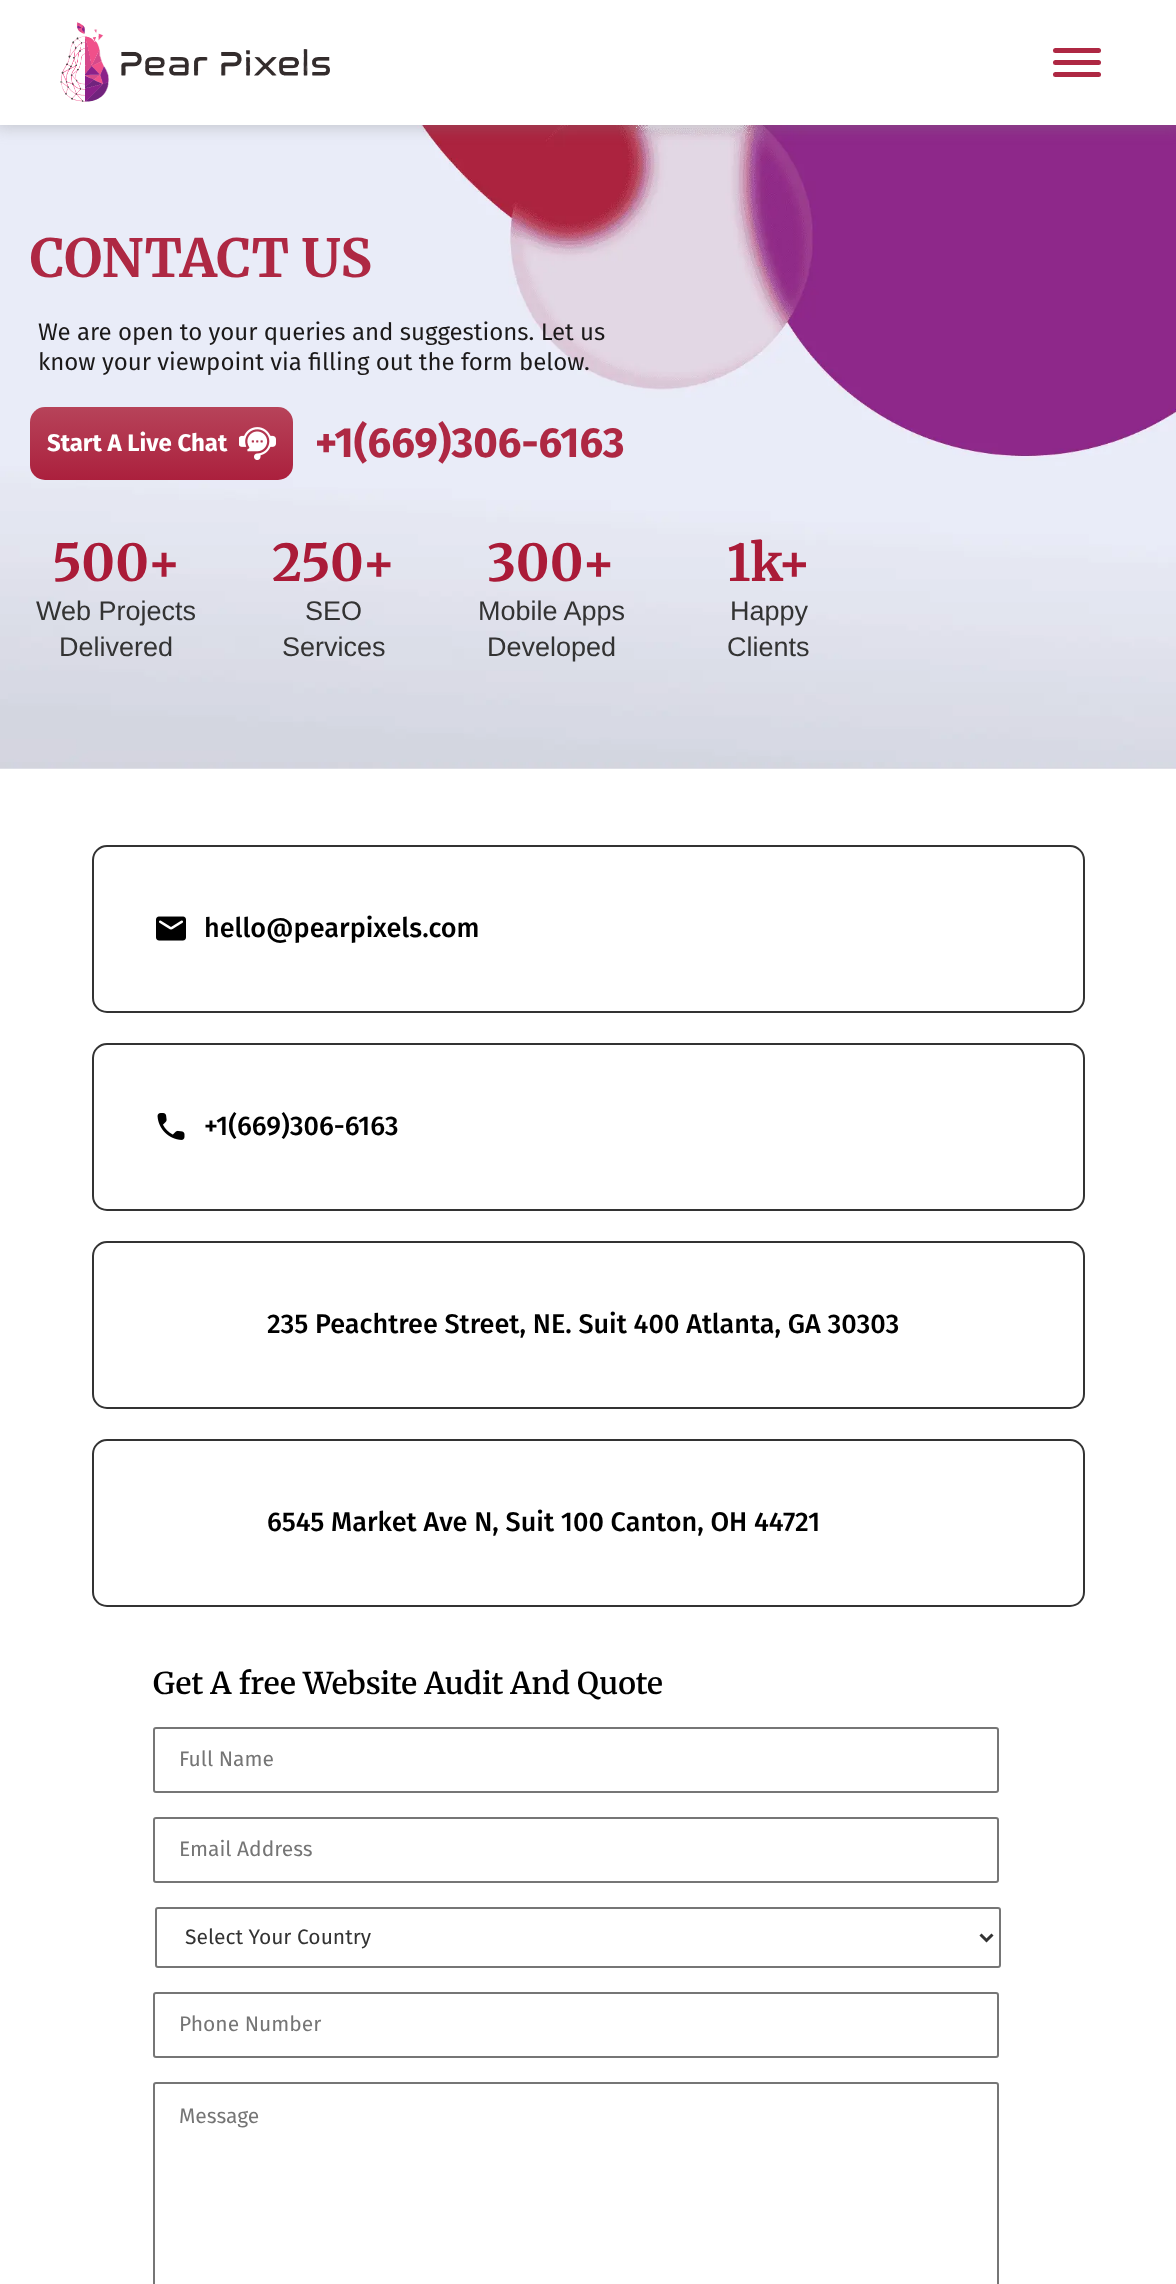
async function draw(canvas) {
  canvas.width = 1176
  canvas.height = 2284
  const ctx = canvas.getContext('2d')
  ctx.miterLimit = 4
  ctx.fontKerning = 'normal'
  async function loadImage(src) {
    const img = new Image()
    img.src = src
    await img.decode()
    return img
  }
  let gradient

  ctx.fillStyle = '#fff'
  ctx.fillRect(0, 0, 1176, 2284)
  ctx.drawImage(await loadImage('image1.png'), 0, 125, 1176, 644)
  ctx.fillStyle = '#80808054'
  ctx.filter = 'blur(7.5px)'
  ctx.beginPath()
  ctx.rect(-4, -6, 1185, 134)
  ctx.fill()
  ctx.filter = 'none'
  ctx.fillStyle = '#fff'
  ctx.fillRect(0, 0, 1176, 125)
  ctx.drawImage(await loadImage('image0.png'), 60, 22, 270, 80)
  ctx.fillStyle = '#ae2843'
  ctx.beginPath()
  ctx.roundRect(1053, 48, 48, 5, 2.5)
  ctx.fill()
  ctx.beginPath()
  ctx.roundRect(1053, 60, 48, 5, 2.5)
  ctx.fill()
  ctx.beginPath()
  ctx.roundRect(1053, 72, 48, 5, 2.5)
  ctx.fill()
  ctx.font = 'bold 52.5px Merriweather'
  ctx.fillText('CONTACT US', 30, 277)
  ctx.font = '24px Fira Sans'
  ctx.fillStyle = '#1b1919'
  ctx.fillText('We are open to your queries and suggestions. Let us', 38, 340)
  ctx.fillText('know your viewpoint via filling out the form below.', 38, 370)
  gradient = ctx.createLinearGradient(161, 393, 161, 480)
  gradient.addColorStop(0, '#b94a5f')
  gradient.addColorStop(1, '#ab203d')
  ctx.fillStyle = gradient
  ctx.beginPath()
  ctx.roundRect(30, 407, 263, 73, 15)
  ctx.fill()
  ctx.font = 'bold 24px Fira Sans'
  ctx.fillStyle = '#fff'
  ctx.fillText('Start A Live Chat', 47, 451)
  ctx.drawImage(await loadImage('image2.png'), 239, 427, 37, 33)
  ctx.font = 'bold 42px Fira Sans'
  ctx.fillStyle = '#ae2843'
  ctx.fillText('+1(669)306-6163', 315, 457)
  ctx.font = 'bold 51px Merriweather'
  ctx.fillStyle = '#aa1b38'
  ctx.fillText('500+', 52, 581)
  ctx.font = '27px Liberation Sans'
  ctx.fillStyle = '#333'
  ctx.fillText('Web Projects', 36, 620)
  ctx.fillText('Delivered', 59, 656)
  ctx.font = 'bold 51px Merriweather'
  ctx.fillStyle = '#aa1b38'
  ctx.fillText('250+', 272, 581)
  ctx.font = '27px Liberation Sans'
  ctx.fillStyle = '#333'
  ctx.fillText('SEO', 305, 620)
  ctx.fillText('Services', 282, 656)
  ctx.font = 'bold 51px Merriweather'
  ctx.fillStyle = '#aa1b38'
  ctx.fillText('300+', 487, 581)
  ctx.font = '27px Liberation Sans'
  ctx.fillStyle = '#333'
  ctx.fillText('Mobile Apps', 478, 620)
  ctx.fillText('Developed', 487, 656)
  ctx.font = 'bold 51px Merriweather'
  ctx.fillStyle = '#aa1b38'
  ctx.fillText('1k+', 727, 581)
  ctx.font = '27px Liberation Sans'
  ctx.fillStyle = '#333'
  ctx.fillText('Happy', 730, 620)
  ctx.fillText('Clients', 727, 656)
  ctx.beginPath()
  ctx.roundRect(93, 846, 991, 166, 14)
  ctx.strokeStyle = '#333'
  ctx.lineWidth = 2
  ctx.stroke()
  ctx.drawImage(await loadImage('image3.png'), 156, 916, 30, 25)
  ctx.font = '500 27px Fira Sans'
  ctx.fillStyle = '#000'
  ctx.fillText('hello@pearpixels.com', 204, 937)
  ctx.beginPath()
  ctx.roundRect(93, 1044, 991, 166, 14)
  ctx.stroke()
  ctx.drawImage(await loadImage('image4.png'), 157, 1113, 28, 27)
  ctx.fillText('+1(669)306-6163', 204, 1135)
  ctx.beginPath()
  ctx.roundRect(93, 1242, 991, 166, 14)
  ctx.stroke()
  ctx.fillText('235 Peachtree Street, NE. Suit 400 Atlanta, GA 30303', 267, 1333)
  ctx.beginPath()
  ctx.roundRect(93, 1440, 991, 166, 14)
  ctx.stroke()
  ctx.fillText('6545 Market Ave N, Suit 100 Canton, OH 44721', 267, 1531)
  ctx.font = '600 30px Merriweather'
  ctx.fillText('Get A free Website Audit And Quote', 153, 1694)
  ctx.beginPath()
  ctx.roundRect(154, 1728, 844, 64, 2)
  ctx.strokeStyle = '#767676'
  ctx.stroke()
  ctx.font = '21px Fira Sans'
  ctx.fillStyle = '#757575'
  ctx.fillText('Full Name', 179, 1766)
  ctx.beginPath()
  ctx.roundRect(154, 1818, 844, 64, 2)
  ctx.stroke()
  ctx.fillText('Email Address', 179, 1856)
  ctx.beginPath()
  ctx.roundRect(156, 1908, 844, 59, 2)
  ctx.stroke()
  ctx.beginPath()
  ctx.moveTo(980.5, 1934.5)
  ctx.lineTo(986.5, 1940.5)
  ctx.lineTo(992.5, 1934.5)
  ctx.strokeStyle = '#333'
  ctx.lineWidth = 3
  ctx.stroke()
  ctx.fillStyle = '#333'
  ctx.fillText('Select Your Country', 185, 1944)
  ctx.beginPath()
  ctx.roundRect(154, 1993, 844, 64, 2)
  ctx.strokeStyle = '#767676'
  ctx.lineWidth = 2
  ctx.stroke()
  ctx.fillStyle = '#757575'
  ctx.fillText('Phone Number', 179, 2031)
  ctx.beginPath()
  ctx.roundRect(154, 2083, 844, 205, 2)
  ctx.stroke()
  ctx.fillText('Message', 179, 2123)
}

draw(document.querySelector('canvas'))
